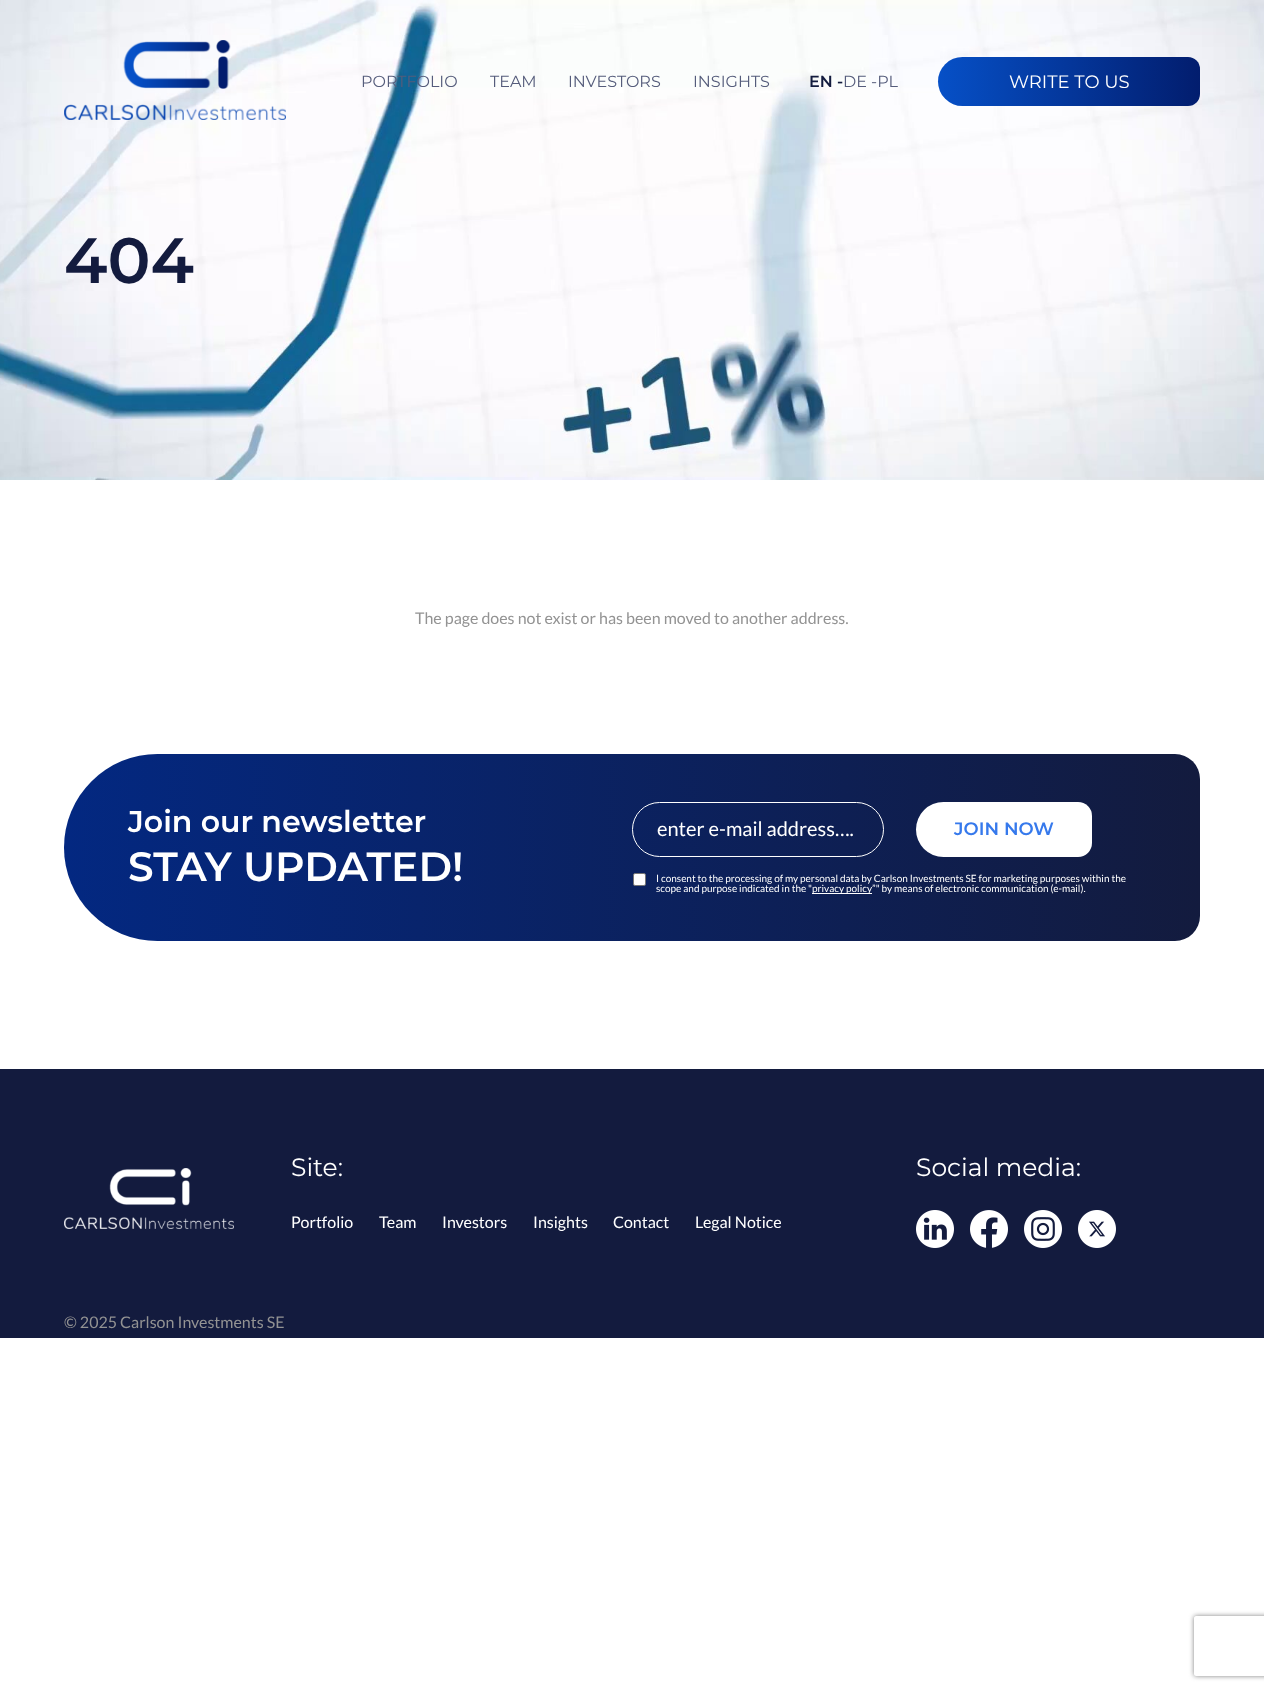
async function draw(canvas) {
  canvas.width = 1264
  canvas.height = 1690
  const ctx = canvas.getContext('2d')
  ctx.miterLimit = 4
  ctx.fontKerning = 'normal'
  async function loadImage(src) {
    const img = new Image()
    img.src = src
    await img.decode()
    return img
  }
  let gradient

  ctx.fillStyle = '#fff'
  ctx.fillRect(0, 0, 1264, 1690)
  ctx.drawImage(await loadImage('image1.png'), 0, 0, 1264, 480)
  ctx.drawImage(await loadImage('image0.png'), 64, 40, 222, 80)
  ctx.font = '16px Montserrat'
  ctx.fillStyle = '#555c7b'
  ctx.fillText('PORTFOLIO', 361, 87)
  ctx.fillText('TEAM', 490, 87)
  ctx.fillText('INVESTORS', 568, 87)
  ctx.fillText('INSIGHTS', 693, 87)
  ctx.font = '600 16px Montserrat'
  ctx.fillStyle = '#131b3e'
  ctx.fillText('EN -', 809, 87)
  ctx.font = '16px Montserrat'
  ctx.fillStyle = '#555c7b'
  ctx.fillText('DE -PL', 843, 87)
  gradient = ctx.createLinearGradient(938, 82, 1200, 81)
  gradient.addColorStop(0, '#0650c7')
  gradient.addColorStop(1, '#021d6e')
  ctx.fillStyle = gradient
  ctx.beginPath()
  ctx.roundRect(938, 57, 262, 49, [24.5, 12, 12, 24.5])
  ctx.fill()
  ctx.font = '18px Montserrat'
  ctx.fillStyle = '#fff'
  ctx.fillText('WRITE TO US', 1009, 88)
  ctx.font = '600 64px Montserrat'
  ctx.fillStyle = '#131b3e'
  ctx.fillText('404', 64, 283)
  ctx.font = '16px Lato'
  ctx.fillStyle = '#939393'
  ctx.fillText('The page does not exist or has been moved to another address.', 415, 624)
  gradient = ctx.createLinearGradient(1200, 847, 64, 848)
  gradient.addColorStop(0, '#131b3e')
  gradient.addColorStop(1, '#032881')
  ctx.fillStyle = gradient
  ctx.beginPath()
  ctx.roundRect(64, 754, 1136, 187, [93.5, 25, 25, 93.5])
  ctx.fill()
  ctx.font = '600 30px Montserrat'
  ctx.fillStyle = '#fff'
  ctx.fillText('Join our newsletter', 128, 832)
  ctx.font = '600 40.75px Montserrat'
  ctx.fillText('STAY UPDATED!', 128, 881)
  ctx.beginPath()
  ctx.roundRect(632.5, 802.5, 251, 54, 27)
  ctx.strokeStyle = '#fff'
  ctx.stroke()
  ctx.font = '20px Lato'
  ctx.fillText('enter e-mail address….', 657, 836)
  ctx.beginPath()
  ctx.roundRect(916, 802, 176, 55, [27.5, 14, 14, 27.5])
  ctx.fill()
  ctx.font = '600 18px Montserrat'
  ctx.fillStyle = '#3679ec'
  ctx.fillText('JOIN NOW', 954, 835)
  ctx.fillStyle = '#fff'
  ctx.beginPath()
  ctx.roundRect(633.5, 873.5, 12, 12, 1.5)
  ctx.fill()
  ctx.strokeStyle = '#767676'
  ctx.stroke()
  ctx.font = '10px Lato'
  ctx.fillText('I consent to the processing of my personal data by Carlson Investments SE for marketing purposes within the', 656, 882)
  ctx.fillText('scope and purpose indicated in the "', 656, 892)
  ctx.fillRect(812, 893, 60, 1)
  ctx.fillText('privacy policy”" by means of electronic communication (e-mail).', 812, 892)
  ctx.fillStyle = '#131b3e'
  ctx.fillRect(0, 1069, 1264, 269)
  ctx.drawImage(await loadImage('image2.png'), 64, 1168, 170, 61)
  ctx.font = '25px Montserrat'
  ctx.fillStyle = '#fff'
  ctx.fillText('Site:', 291, 1176)
  ctx.font = '16px Lato'
  ctx.fillText('Portfolio', 291, 1228)
  ctx.fillText('Team', 379, 1228)
  ctx.fillText('Investors', 442, 1228)
  ctx.fillText('Insights', 533, 1228)
  ctx.fillText('Contact', 613, 1228)
  ctx.fillText('Legal Notice', 695, 1228)
  ctx.font = '25px Montserrat'
  ctx.fillText('Social media:', 916, 1176)
  ctx.drawImage(await loadImage('image3.png'), 916, 1210, 38, 38)
  ctx.drawImage(await loadImage('image4.png'), 970, 1210, 38, 38)
  ctx.drawImage(await loadImage('image5.png'), 1024, 1210, 38, 38)
  ctx.drawImage(await loadImage('image6.png'), 1078, 1210, 38, 38)
  ctx.font = '16px Lato'
  ctx.fillStyle = '#939393'
  ctx.fillText('© 2025 Carlson Investments SE', 64, 1328)
  ctx.save()
  ctx.beginPath()
  ctx.moveTo(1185, 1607)
  ctx.lineTo(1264, 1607)
  ctx.lineTo(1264, 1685)
  ctx.lineTo(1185, 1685)
  ctx.closePath()
  ctx.moveTo(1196, 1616)
  ctx.lineTo(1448, 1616)
  ctx.bezierCurveTo(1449, 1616, 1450, 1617, 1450, 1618)
  ctx.lineTo(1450, 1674)
  ctx.bezierCurveTo(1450, 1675, 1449, 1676, 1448, 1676)
  ctx.lineTo(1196, 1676)
  ctx.bezierCurveTo(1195, 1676, 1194, 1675, 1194, 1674)
  ctx.lineTo(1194, 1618)
  ctx.bezierCurveTo(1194, 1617, 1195, 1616, 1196, 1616)
  ctx.closePath()
  ctx.clip('evenodd')
  ctx.fillStyle = '#808080'
  ctx.filter = 'blur(2.5px)'
  ctx.beginPath()
  ctx.roundRect(1194, 1616, 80, 60, 2)
  ctx.fill()
  ctx.filter = 'none'
  ctx.restore()
}

draw(document.querySelector('canvas'))
